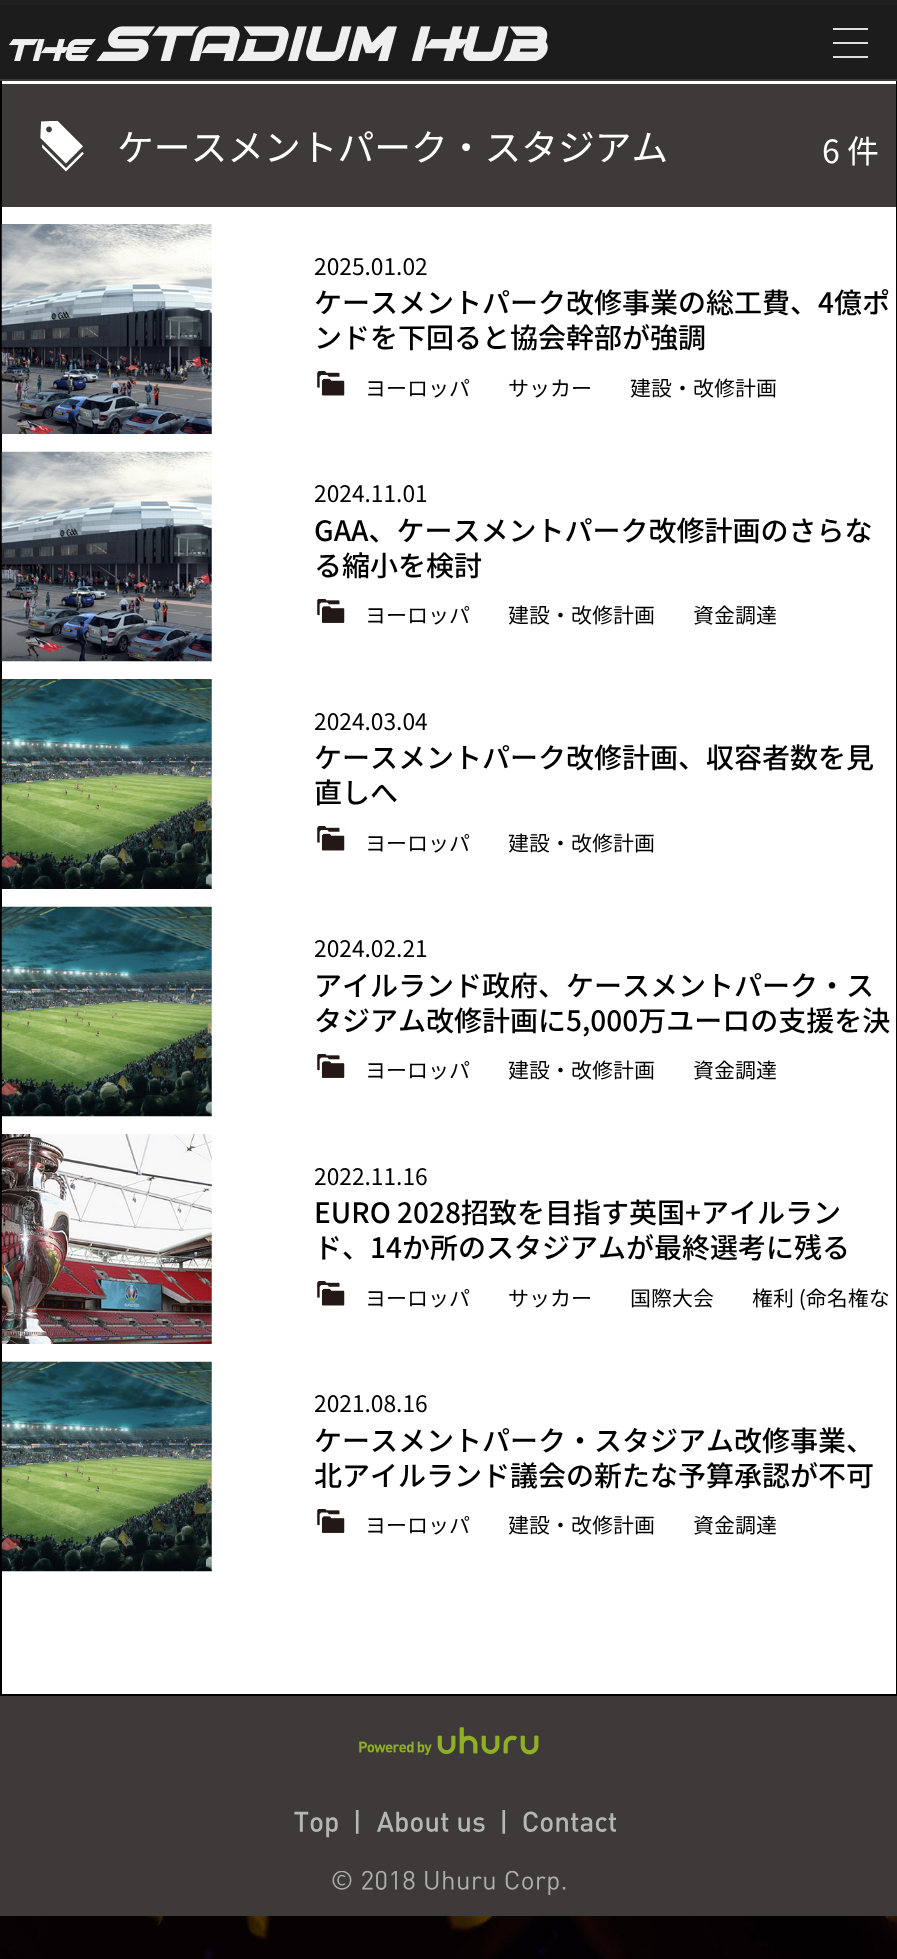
async function draw(canvas) {
  canvas.width = 897
  canvas.height = 1959
  const ctx = canvas.getContext('2d')
  ctx.miterLimit = 4
  ctx.fontKerning = 'none'
  async function loadImage(src) {
    const img = new Image()
    img.src = src
    await img.decode()
    return img
  }

  ctx.fillStyle = '#fff'
  ctx.fillRect(0, 0, 897, 1959)
  ctx.drawImage(await loadImage('image0.png'), 0, 1916, 897, 43)
  ctx.fillStyle = '#000'
  ctx.fillRect(0, 81, 897, 1615)
  ctx.fillStyle = '#3e3a39'
  ctx.fillRect(0, 79, 897, 2)
  ctx.fillStyle = '#1c1c1c'
  ctx.fillRect(0, 5, 897, 74)
  ctx.fillStyle = '#201f1f'
  ctx.fillRect(0, 0, 897, 5)
  ctx.drawImage(await loadImage('image1.png'), 9, 26, 539, 35)
  ctx.fillStyle = '#ddd'
  ctx.fillRect(833, 28, 35, 2)
  ctx.fillRect(833, 42, 35, 2)
  ctx.fillRect(833, 56, 35, 2)
  ctx.fillStyle = '#fff'
  ctx.fillRect(2, 81, 894, 1613)
  ctx.fillStyle = '#3e3a39'
  ctx.fillRect(2, 84, 894, 123)
  ctx.drawImage(await loadImage('image2.png'), 40, 121, 44, 51)
  ctx.font = '36.75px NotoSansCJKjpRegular'
  ctx.fillStyle = '#fff'
  ctx.fillText('ケースメントパーク・スタジアム', 117, 161)
  ctx.font = '32px NotoSansCJKjpRegular'
  ctx.fillText('6 件', 822, 163)
  ctx.drawImage(await loadImage('image3.png'), 1, 224, 211, 210)
  ctx.font = '22.75px NotoSansCJKjpRegular'
  ctx.fillStyle = '#000'
  ctx.fillText('2025.01.02', 314, 275)
  ctx.font = '500 28px Noto Sans CJK JP'
  ctx.fillText('ケースメントパーク改修事業の総工費、4億ポ', 314, 313)
  ctx.fillText('ンドを下回ると協会幹部が強調', 314, 348)
  ctx.drawImage(await loadImage('image4.png'), 317, 371, 28, 25)
  ctx.font = '21px NotoSansCJKjpRegular'
  ctx.fillText('ヨーロッパ', 365, 396)
  ctx.fillText('サッカー', 508, 396)
  ctx.fillText('建設・改修計画', 630, 396)
  ctx.drawImage(await loadImage('image5.png'), 1, 451, 211, 211)
  ctx.font = '22.75px NotoSansCJKjpRegular'
  ctx.fillText('2024.11.01', 314, 502)
  ctx.font = '500 28px Noto Sans CJK JP'
  ctx.fillText('GAA、ケースメントパーク改修計画のさらな', 314, 541)
  ctx.fillText('る縮小を検討', 314, 576)
  ctx.drawImage(await loadImage('image6.png'), 317, 599, 28, 24)
  ctx.font = '21px NotoSansCJKjpRegular'
  ctx.fillText('ヨーロッパ', 365, 623)
  ctx.fillText('建設・改修計画', 508, 623)
  ctx.fillText('資金調達', 693, 623)
  ctx.drawImage(await loadImage('image7.png'), 1, 679, 211, 210)
  ctx.font = '22.75px NotoSansCJKjpRegular'
  ctx.fillText('2024.03.04', 314, 730)
  ctx.font = '500 28px Noto Sans CJK JP'
  ctx.fillText('ケースメントパーク改修計画、収容者数を見', 314, 768)
  ctx.fillText('直しへ', 314, 803)
  ctx.drawImage(await loadImage('image4.png'), 317, 826, 28, 25)
  ctx.font = '21px NotoSansCJKjpRegular'
  ctx.fillText('ヨーロッパ', 365, 851)
  ctx.fillText('建設・改修計画', 508, 851)
  ctx.drawImage(await loadImage('image8.png'), 1, 906, 211, 211)
  ctx.font = '22.75px NotoSansCJKjpRegular'
  ctx.fillText('2024.02.21', 314, 957)
  ctx.font = '500 28px Noto Sans CJK JP'
  ctx.fillText('アイルランド政府、ケースメントパーク・ス', 314, 996)
  ctx.fillText('タジアム改修計画に5,000万ユーロの支援を決', 314, 1031)
  ctx.drawImage(await loadImage('image6.png'), 317, 1054, 28, 24)
  ctx.font = '21px NotoSansCJKjpRegular'
  ctx.fillText('ヨーロッパ', 365, 1078)
  ctx.fillText('建設・改修計画', 508, 1078)
  ctx.fillText('資金調達', 693, 1078)
  ctx.drawImage(await loadImage('image9.png'), 1, 1134, 211, 210)
  ctx.font = '22.75px NotoSansCJKjpRegular'
  ctx.fillText('2022.11.16', 314, 1185)
  ctx.font = '500 28px Noto Sans CJK JP'
  ctx.fillText('EURO 2028招致を目指す英国+アイルラン', 314, 1223)
  ctx.fillText('ド、14か所のスタジアムが最終選考に残る', 314, 1258)
  ctx.drawImage(await loadImage('image4.png'), 317, 1281, 28, 25)
  ctx.font = '21px NotoSansCJKjpRegular'
  ctx.fillText('ヨーロッパ', 365, 1306)
  ctx.fillText('サッカー', 508, 1306)
  ctx.fillText('国際大会', 630, 1306)
  ctx.fillText('権利 (命名権な', 752, 1306)
  ctx.drawImage(await loadImage('image10.png'), 1, 1361, 211, 211)
  ctx.font = '22.75px NotoSansCJKjpRegular'
  ctx.fillText('2021.08.16', 314, 1412)
  ctx.font = '500 28px Noto Sans CJK JP'
  ctx.fillText('ケースメントパーク・スタジアム改修事業、', 314, 1451)
  ctx.fillText('北アイルランド議会の新たな予算承認が不可', 314, 1486)
  ctx.drawImage(await loadImage('image6.png'), 317, 1509, 28, 24)
  ctx.font = '21px NotoSansCJKjpRegular'
  ctx.fillText('ヨーロッパ', 365, 1533)
  ctx.fillText('建設・改修計画', 508, 1533)
  ctx.fillText('資金調達', 693, 1533)
  ctx.fillStyle = '#3e3a39'
  ctx.fillRect(0, 1696, 897, 220)
  ctx.drawImage(await loadImage('image11.png'), 359, 1727, 180, 28)
  ctx.drawImage(await loadImage('image12.png'), 294, 1810, 65, 28)
  ctx.drawImage(await loadImage('image13.png'), 377, 1811, 108, 21)
  ctx.drawImage(await loadImage('image14.png'), 502, 1810, 114, 24)
  ctx.drawImage(await loadImage('image15.png'), 332, 1871, 234, 24)
}

draw(document.querySelector('canvas'))
